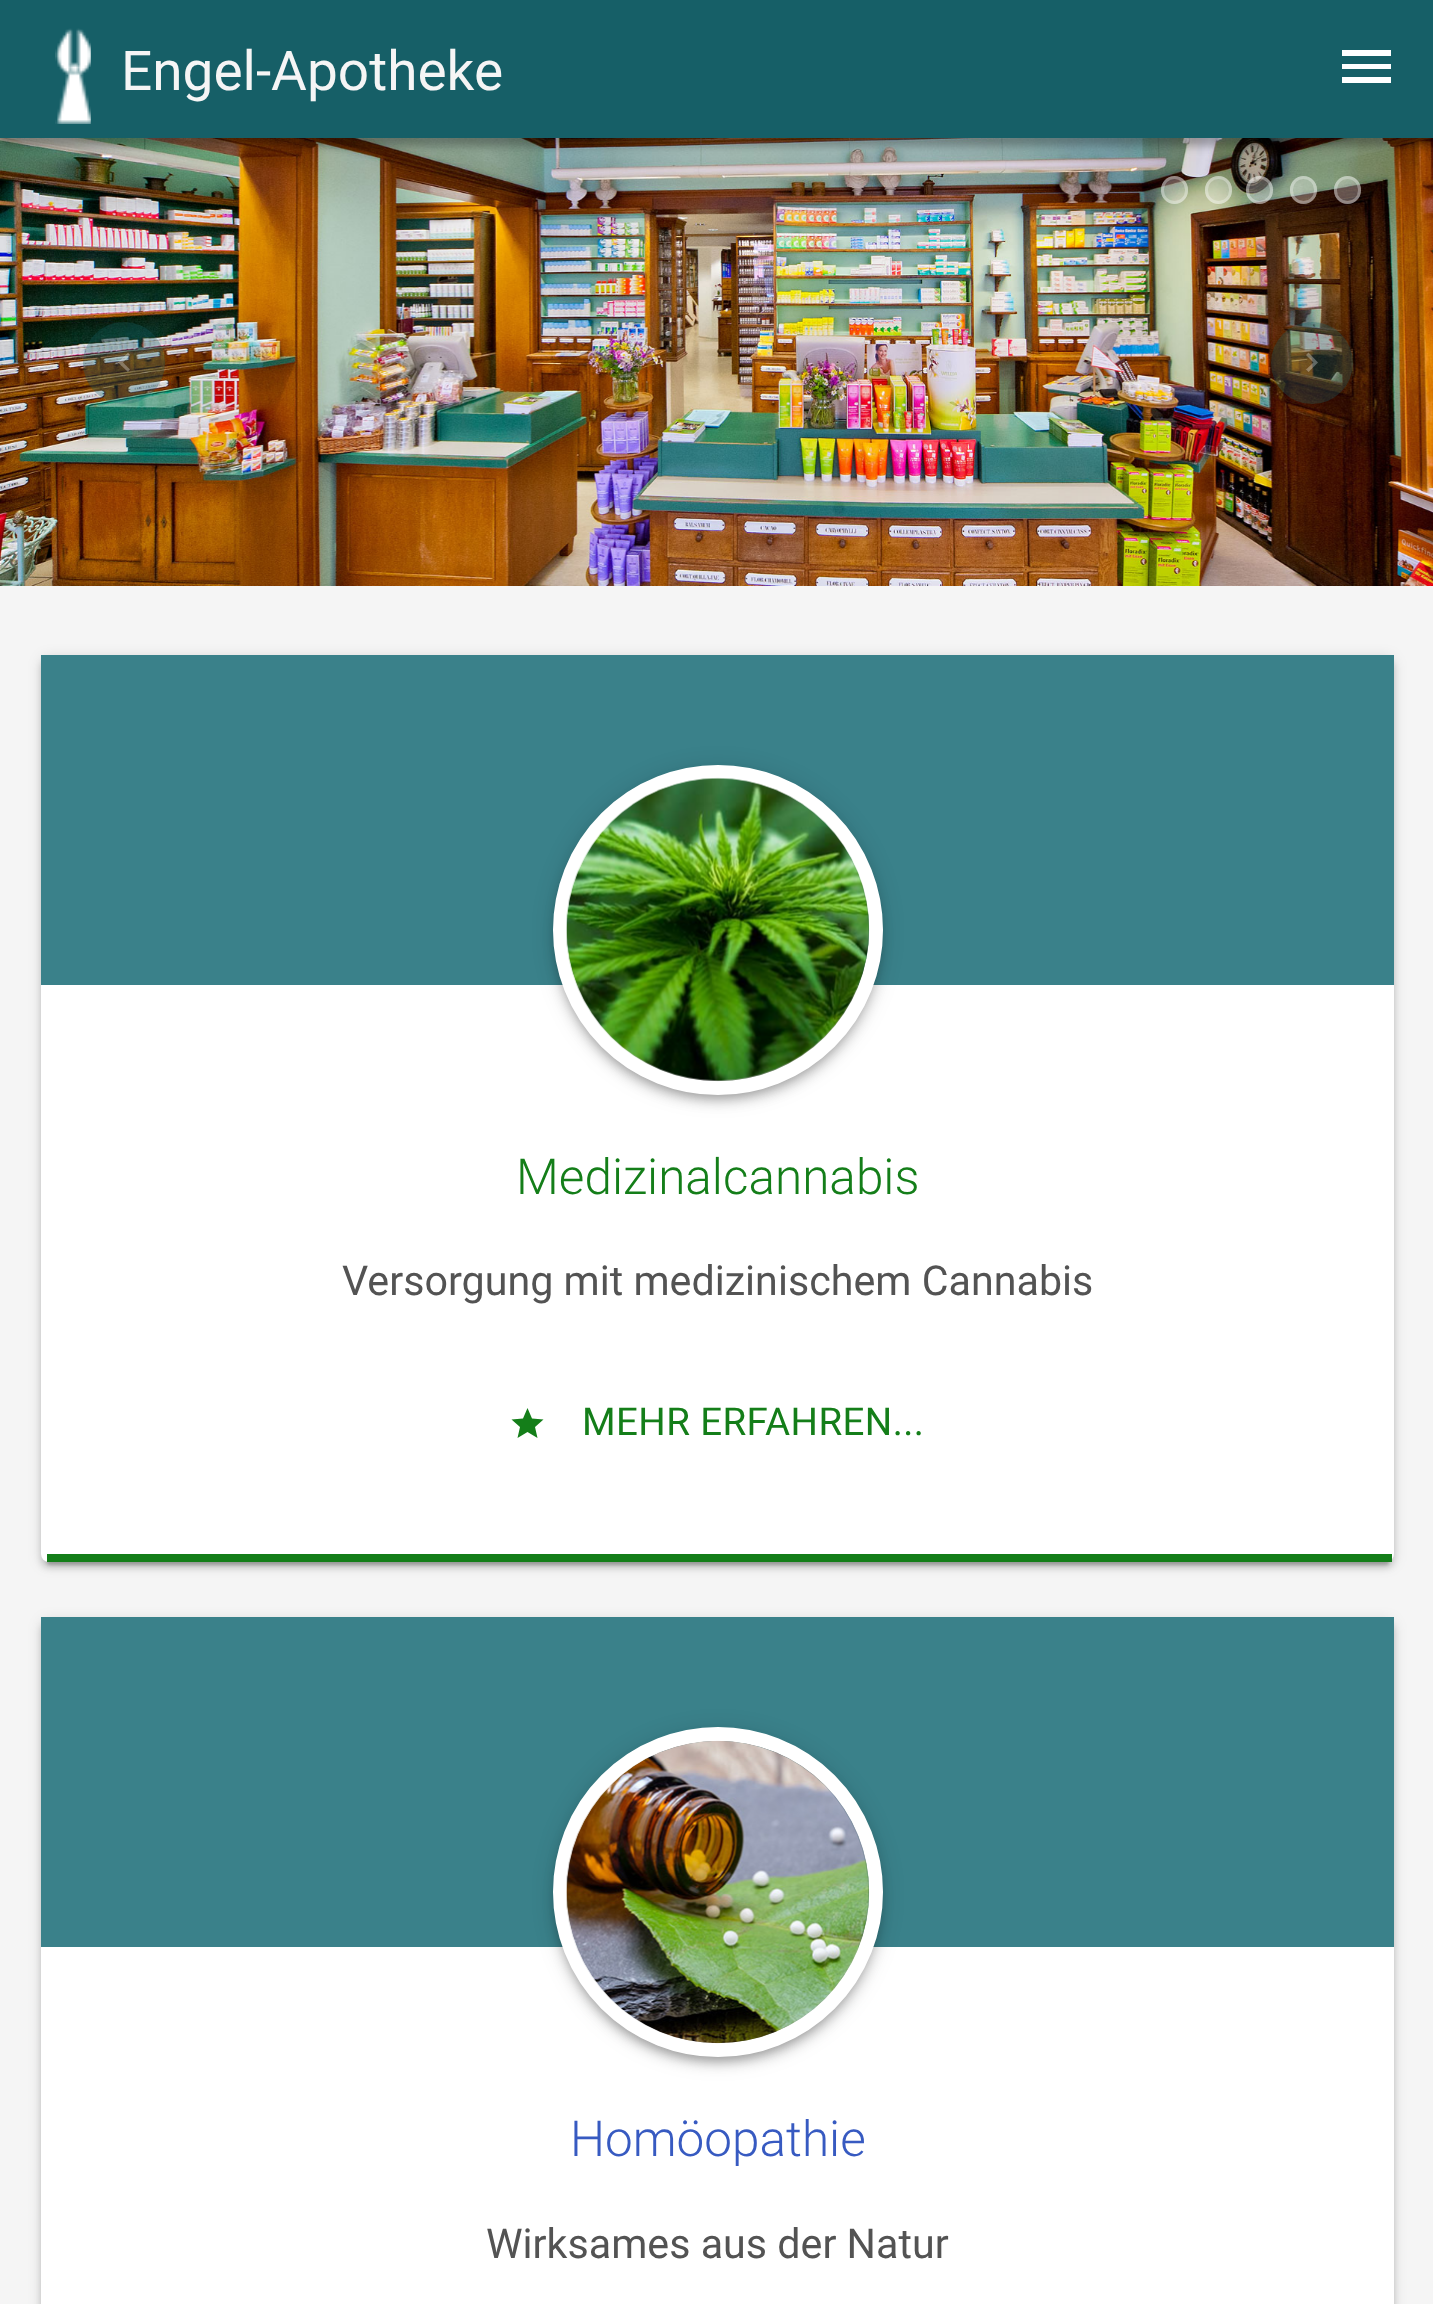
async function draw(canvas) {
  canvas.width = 1433
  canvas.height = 2304
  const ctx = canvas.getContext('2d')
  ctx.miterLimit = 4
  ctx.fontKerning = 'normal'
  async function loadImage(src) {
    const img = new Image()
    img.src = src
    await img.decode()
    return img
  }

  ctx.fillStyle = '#f5f5f5'
  ctx.fillRect(0, 0, 1433, 2304)
  ctx.drawImage(await loadImage('image1.png'), 0, 138, 1433, 448)
  ctx.fillStyle = '#0000004a'
  ctx.filter = 'blur(4px)'
  ctx.beginPath()
  ctx.rect(0, 8, 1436, 138)
  ctx.fill()
  ctx.filter = 'none'
  ctx.fillStyle = '#165f67'
  ctx.fillRect(0, 0, 1433, 138)
  ctx.drawImage(await loadImage('image0.png'), 55, 28, 36, 96)
  ctx.font = '55px Roboto'
  ctx.fillStyle = '#f5f5f5'
  ctx.fillText('Engel-Apotheke', 121, 90)
  ctx.fillStyle = '#fff'
  ctx.beginPath()
  ctx.moveTo(1342, 83)
  ctx.lineTo(1342, 77)
  ctx.lineTo(1391, 77)
  ctx.lineTo(1391, 83)
  ctx.closePath()
  ctx.moveTo(1342, 69)
  ctx.lineTo(1342, 64)
  ctx.lineTo(1391, 64)
  ctx.lineTo(1391, 69)
  ctx.closePath()
  ctx.moveTo(1342, 50)
  ctx.lineTo(1391, 50)
  ctx.lineTo(1391, 56)
  ctx.lineTo(1342, 56)
  ctx.closePath()
  ctx.fill()
  ctx.fillStyle = '#ffffff4d'
  ctx.beginPath()
  ctx.roundRect(1161, 176, 27, 28, 13.5)
  ctx.fill()
  ctx.beginPath()
  ctx.roundRect(1162.5, 177.5, 24, 25, 12)
  ctx.strokeStyle = '#ffffff4d'
  ctx.lineWidth = 3
  ctx.stroke()
  ctx.beginPath()
  ctx.roundRect(1205, 176, 27, 28, 13.5)
  ctx.fill()
  ctx.beginPath()
  ctx.roundRect(1206.5, 177.5, 24, 25, 12)
  ctx.stroke()
  ctx.beginPath()
  ctx.roundRect(1246, 176, 27, 28, 13.5)
  ctx.fill()
  ctx.beginPath()
  ctx.roundRect(1247.5, 177.5, 24, 25, 12)
  ctx.stroke()
  ctx.beginPath()
  ctx.roundRect(1290, 176, 27, 28, 13.5)
  ctx.fill()
  ctx.beginPath()
  ctx.roundRect(1291.5, 177.5, 24, 25, 12)
  ctx.stroke()
  ctx.beginPath()
  ctx.roundRect(1334, 176, 27, 28, 13.5)
  ctx.fill()
  ctx.beginPath()
  ctx.roundRect(1335.5, 177.5, 24, 25, 12)
  ctx.stroke()
  ctx.fillStyle = '#165f674d'
  ctx.beginPath()
  ctx.arc(124, 363, 41, 0, 2 * Math.PI)
  ctx.fill()
  ctx.fillStyle = '#ffffff4d'
  ctx.beginPath()
  ctx.moveTo(130, 355)
  ctx.lineTo(123, 362.5)
  ctx.lineTo(130, 369.5)
  ctx.lineTo(128, 372)
  ctx.lineTo(118, 362.5)
  ctx.lineTo(128, 352.5)
  ctx.closePath()
  ctx.fill()
  ctx.fillStyle = '#165f674d'
  ctx.beginPath()
  ctx.arc(1312, 363, 41, 0, 2 * Math.PI)
  ctx.fill()
  ctx.fillStyle = '#ffffff4d'
  ctx.beginPath()
  ctx.moveTo(1308.5, 352.5)
  ctx.lineTo(1318, 362.5)
  ctx.lineTo(1308.5, 372)
  ctx.lineTo(1306, 369.5)
  ctx.lineTo(1313.5, 362.5)
  ctx.lineTo(1306, 355)
  ctx.closePath()
  ctx.fill()
  ctx.fillStyle = '#0000001f'
  ctx.filter = 'blur(7px)'
  ctx.beginPath()
  ctx.roundRect(41, 657, 1353, 908, 8)
  ctx.fill()
  ctx.filter = 'none'
  ctx.fillStyle = '#00000033'
  ctx.filter = 'blur(1.5px)'
  ctx.beginPath()
  ctx.roundRect(47, 668, 1342, 897, 3)
  ctx.fill()
  ctx.filter = 'none'
  ctx.fillStyle = '#00000024'
  ctx.filter = 'blur(3px)'
  ctx.beginPath()
  ctx.roundRect(41, 660, 1353, 908, 8)
  ctx.fill()
  ctx.filter = 'none'
  ctx.fillStyle = '#fff'
  ctx.beginPath()
  ctx.roundRect(41, 655, 1353, 907, 8)
  ctx.fill()
  ctx.fillStyle = '#147e19'
  ctx.fillRect(47, 1554, 1345, 8)
  ctx.fillStyle = '#3a818a'
  ctx.fillRect(41, 655, 1353, 330)
  ctx.fillStyle = '#0000001f'
  ctx.filter = 'blur(11px)'
  ctx.beginPath()
  ctx.roundRect(553, 767, 330, 330, 165)
  ctx.fill()
  ctx.filter = 'none'
  ctx.fillStyle = '#00000033'
  ctx.filter = 'blur(4px)'
  ctx.beginPath()
  ctx.roundRect(558, 778, 319, 319, 159.5)
  ctx.fill()
  ctx.filter = 'none'
  ctx.fillStyle = '#00000024'
  ctx.filter = 'blur(5.5px)'
  ctx.beginPath()
  ctx.roundRect(553, 773, 330, 330, 165)
  ctx.fill()
  ctx.filter = 'none'
  ctx.beginPath()
  ctx.arc(718, 930, 158, 0, 2 * Math.PI)
  ctx.strokeStyle = '#fff'
  ctx.lineWidth = 14
  ctx.stroke()
  ctx.drawImage(await loadImage('image2.png'), 566, 777, 304, 305)
  ctx.font = '300 49.5px Roboto'
  ctx.fillStyle = '#147e19'
  ctx.fillText('Medizinalcannabis', 516, 1194)
  ctx.font = '41.25px Roboto'
  ctx.fillStyle = '#535353'
  ctx.fillText('Versorgung mit medizinischem Cannabis', 342, 1295)
  ctx.fillStyle = '#147e19'
  ctx.beginPath()
  ctx.moveTo(527.5, 1432)
  ctx.lineTo(517.5, 1438)
  ctx.lineTo(520, 1427)
  ctx.lineTo(511.5, 1419.5)
  ctx.lineTo(523, 1418.5)
  ctx.lineTo(527.5, 1408)
  ctx.lineTo(532, 1418.5)
  ctx.lineTo(543.5, 1419.5)
  ctx.lineTo(535, 1427)
  ctx.lineTo(537.5, 1438)
  ctx.closePath()
  ctx.fill()
  ctx.letterSpacing = '0.4px'
  ctx.font = '38.5px Roboto'
  ctx.fillText('MEHR ERFAHREN...', 582, 1435)
  ctx.fillStyle = '#0000001f'
  ctx.filter = 'blur(7px)'
  ctx.beginPath()
  ctx.roundRect(41, 1620, 1353, 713, 8)
  ctx.fill()
  ctx.filter = 'none'
  ctx.fillStyle = '#00000024'
  ctx.filter = 'blur(3px)'
  ctx.beginPath()
  ctx.roundRect(41, 1623, 1353, 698, 8)
  ctx.fill()
  ctx.filter = 'none'
  ctx.fillStyle = '#fff'
  ctx.fillRect(41, 1947, 1353, 357)
  ctx.fillStyle = '#3a818a'
  ctx.fillRect(41, 1617, 1353, 330)
  ctx.fillStyle = '#0000001f'
  ctx.filter = 'blur(11px)'
  ctx.beginPath()
  ctx.roundRect(553, 1730, 330, 330, 165)
  ctx.fill()
  ctx.filter = 'none'
  ctx.fillStyle = '#00000033'
  ctx.filter = 'blur(4px)'
  ctx.beginPath()
  ctx.roundRect(558, 1741, 319, 319, 159.5)
  ctx.fill()
  ctx.filter = 'none'
  ctx.fillStyle = '#00000024'
  ctx.filter = 'blur(5.5px)'
  ctx.beginPath()
  ctx.roundRect(553, 1735, 330, 330, 165)
  ctx.fill()
  ctx.filter = 'none'
  ctx.beginPath()
  ctx.arc(718, 1892, 158, 0, 2 * Math.PI)
  ctx.stroke()
  ctx.drawImage(await loadImage('image3.png'), 566, 1740, 304, 304)
  ctx.letterSpacing = '0px'
  ctx.font = '300 49.5px Roboto'
  ctx.fillStyle = '#375ac1'
  ctx.fillText('Homöopathie', 570, 2156)
  ctx.font = '41.25px Roboto'
  ctx.fillStyle = '#535353'
  ctx.fillText('Wirksames aus der Natur', 486, 2258)
}

draw(document.querySelector('canvas'))
